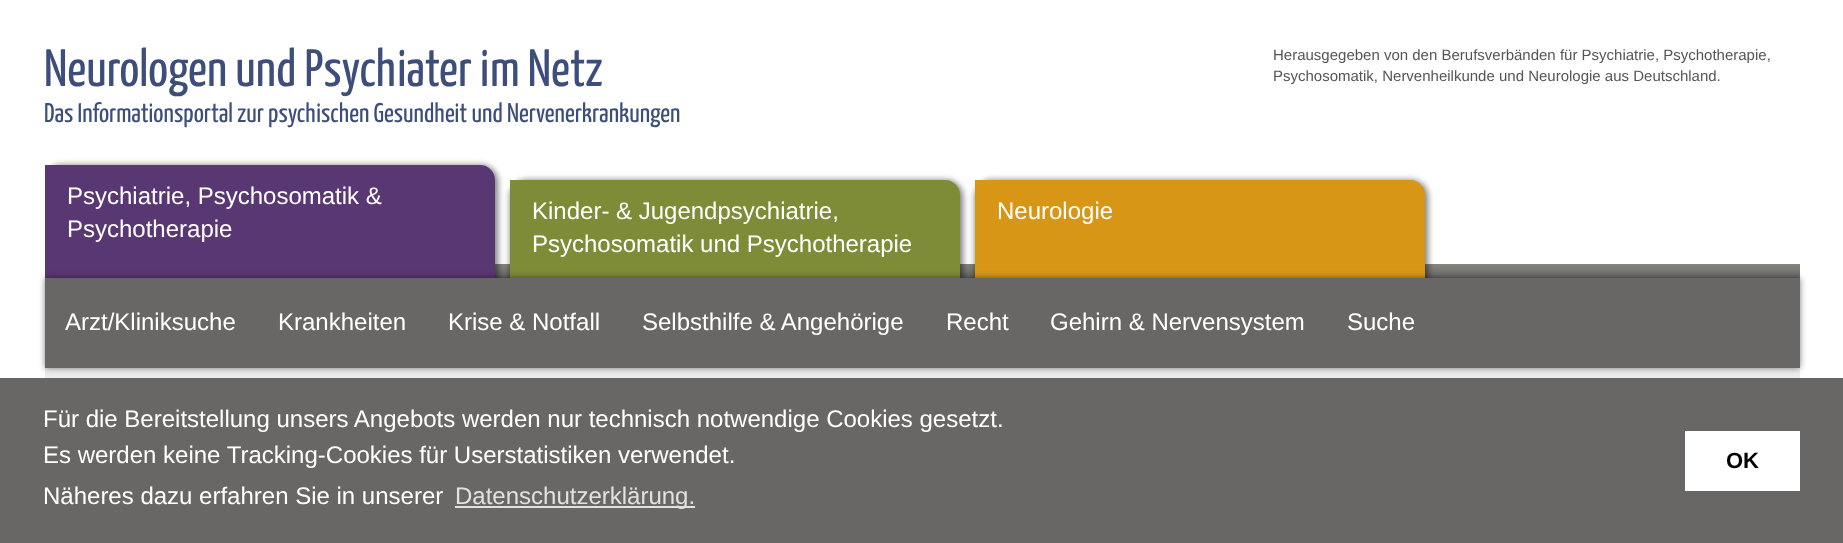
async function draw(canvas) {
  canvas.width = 1843
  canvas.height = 543
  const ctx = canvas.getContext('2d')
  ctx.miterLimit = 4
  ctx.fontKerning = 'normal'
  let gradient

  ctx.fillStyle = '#fff'
  ctx.fillRect(0, 0, 1843, 543)
  ctx.font = '200 52.5px Yanone Kaffeesatz'
  ctx.fillStyle = '#3c4e79'
  ctx.fillText('Neurologen und Psychiater im Netz', 44, 86)
  ctx.font = '200 27px Yanone Kaffeesatz'
  ctx.fillText('Das Informationsportal zur psychischen Gesundheit und Nervenerkrankungen', 44, 122)
  ctx.font = '15px Liberation Sans'
  ctx.fillStyle = '#555'
  ctx.fillText('Herausgegeben von den Berufsverbänden für Psychiatrie, Psychotherapie,', 1273, 60)
  ctx.fillText('Psychosomatik, Nervenheilkunde und Neurologie aus Deutschland.', 1273, 81)
  gradient = ctx.createLinearGradient(923, 135, 923, 278)
  gradient.addColorStop(0, '#fff')
  gradient.addColorStop(0.9, '#fff')
  gradient.addColorStop(0.9, '#888681')
  gradient.addColorStop(1, '#686765')
  ctx.fillStyle = gradient
  ctx.fillRect(45, 264, 1755, 14)
  ctx.save()
  ctx.beginPath()
  ctx.rect(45, 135, 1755, 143)
  ctx.clip()
  ctx.fillStyle = '#00000080'
  ctx.filter = 'blur(3px)'
  ctx.beginPath()
  ctx.roundRect(45, 165, 453, 132, 17)
  ctx.fill()
  ctx.filter = 'none'
  ctx.restore()
  ctx.fillStyle = '#593773'
  ctx.beginPath()
  ctx.roundRect(45, 165, 450, 113, [0, 15, 0, 0])
  ctx.fill()
  ctx.font = '24px Liberation Sans'
  ctx.fillStyle = '#fff'
  ctx.fillText('Psychiatrie, Psychosomatik &', 67, 204)
  ctx.fillText('Psychotherapie', 67, 237)
  ctx.fillStyle = '#00000080'
  ctx.filter = 'blur(3px)'
  ctx.beginPath()
  ctx.roundRect(510, 180, 453, 110, 17)
  ctx.fill()
  ctx.filter = 'none'
  ctx.fillStyle = '#7f8c37'
  ctx.beginPath()
  ctx.roundRect(510, 180, 450, 98, [0, 15, 0, 0])
  ctx.fill()
  ctx.fillStyle = '#fff'
  ctx.fillText('Kinder- & Jugendpsychiatrie,', 532, 219)
  ctx.fillText('Psychosomatik und Psychotherapie', 532, 252)
  ctx.fillStyle = '#00000080'
  ctx.filter = 'blur(3px)'
  ctx.beginPath()
  ctx.roundRect(975, 180, 453, 110, 17)
  ctx.fill()
  ctx.filter = 'none'
  ctx.fillStyle = '#d89616'
  ctx.beginPath()
  ctx.roundRect(975, 180, 450, 98, [0, 15, 0, 0])
  ctx.fill()
  ctx.fillStyle = '#fff'
  ctx.fillText('Neurologie', 997, 219)
  ctx.fillStyle = '#ececec'
  ctx.fillRect(45, 368, 1755, 10)
  ctx.fillStyle = '#00000080'
  ctx.filter = 'blur(3px)'
  ctx.beginPath()
  ctx.rect(45, 278, 1755, 90)
  ctx.fill()
  ctx.filter = 'none'
  ctx.fillStyle = '#686765'
  ctx.fillRect(45, 278, 1755, 90)
  ctx.fillStyle = '#fff'
  ctx.fillText('Arzt/Kliniksuche', 65, 330)
  ctx.fillText('Krankheiten', 278, 330)
  ctx.fillText('Krise & Notfall', 448, 330)
  ctx.fillText('Selbsthilfe & Angehörige', 642, 330)
  ctx.fillText('Recht', 946, 330)
  ctx.fillText('Gehirn & Nervensystem', 1050, 330)
  ctx.fillText('Suche', 1347, 330)
  ctx.fillStyle = '#686765'
  ctx.fillRect(0, 378, 1843, 165)
  ctx.fillStyle = '#fff'
  ctx.fillText('Für die Bereitstellung unsers Angebots werden nur technisch notwendige Cookies gesetzt.', 43, 427)
  ctx.fillText('Es werden keine Tracking-Cookies für Userstatistiken verwendet.', 43, 463)
  ctx.fillText('Näheres dazu erfahren Sie in unserer', 43, 504)
  ctx.fillStyle = '#e1e1e0'
  ctx.fillRect(455, 506, 240, 2)
  ctx.fillText('Datenschutzerklärung.', 455, 504)
  ctx.fillStyle = '#fff'
  ctx.fillRect(1685, 431, 115, 60)
  ctx.font = 'bold 22px Liberation Sans'
  ctx.fillStyle = '#000'
  ctx.fillText('OK', 1726, 468)
}

draw(document.querySelector('canvas'))
